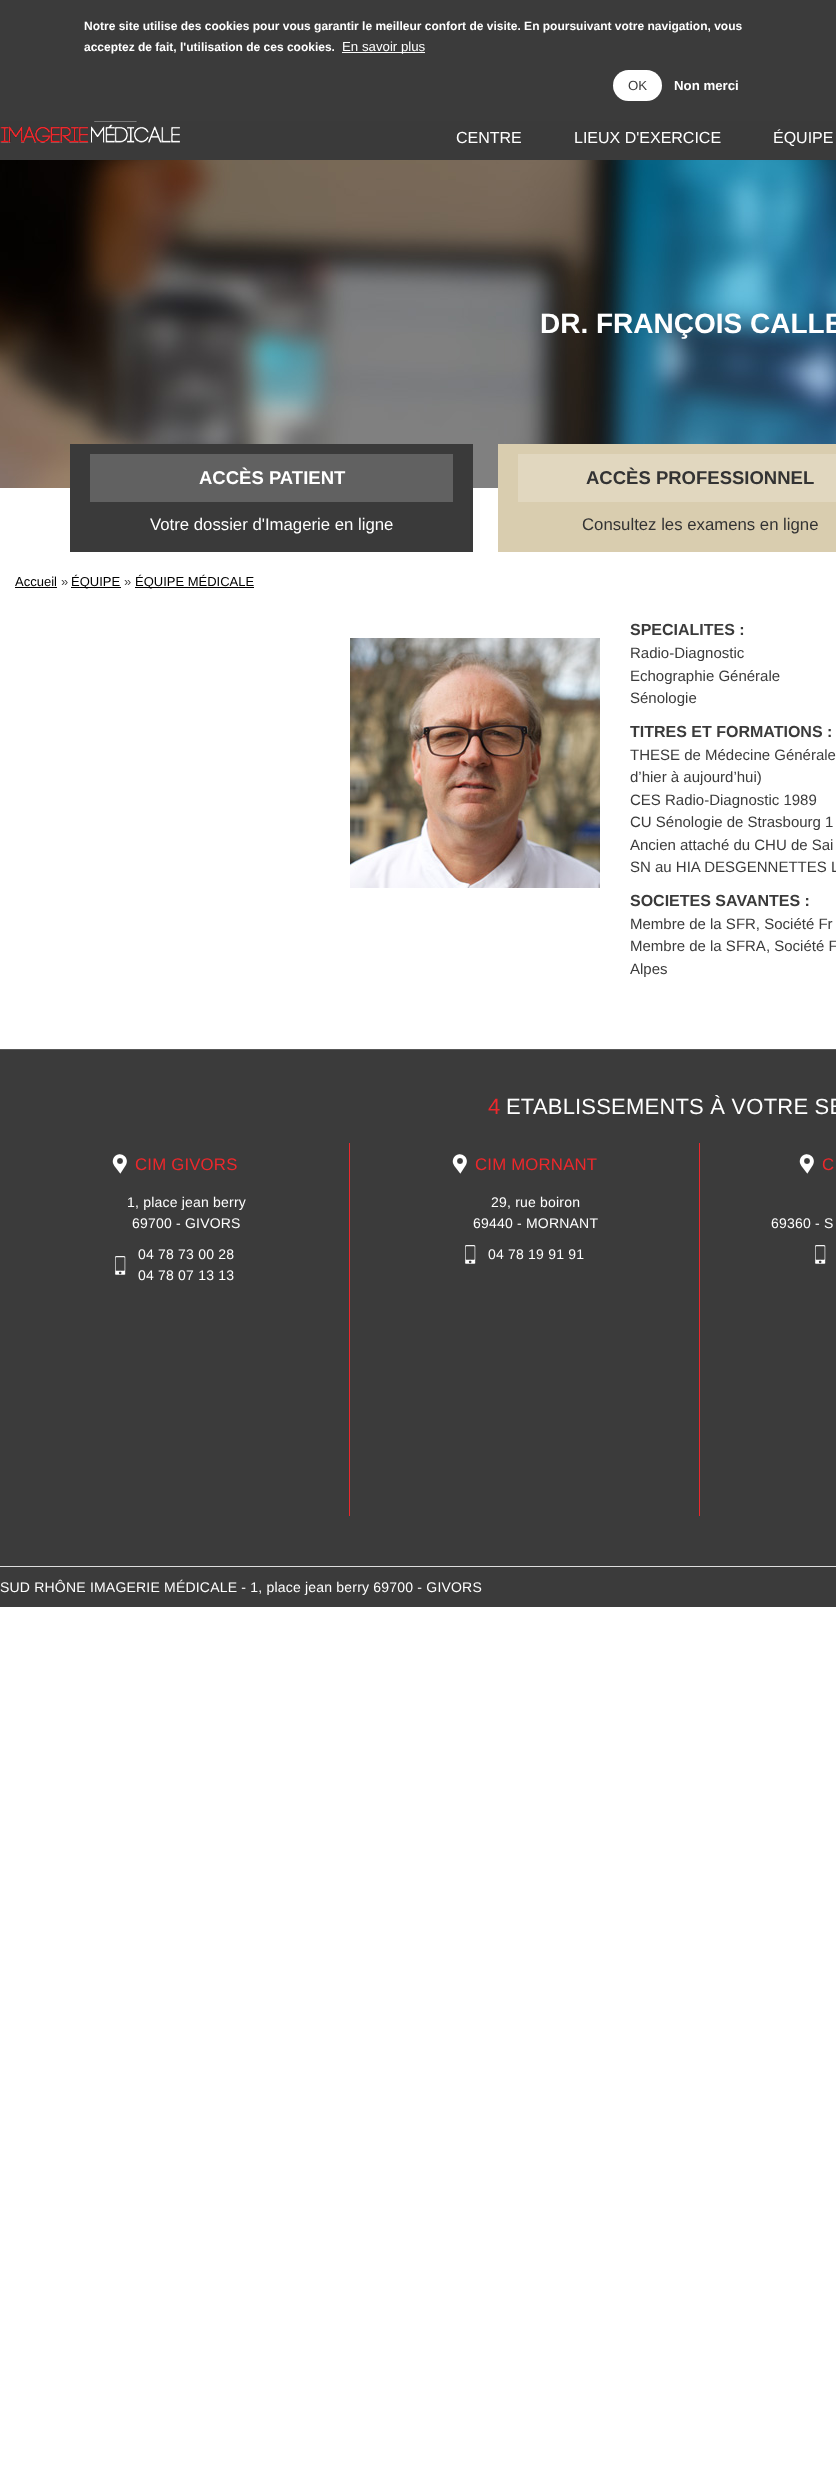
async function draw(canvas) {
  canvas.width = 836
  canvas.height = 2491
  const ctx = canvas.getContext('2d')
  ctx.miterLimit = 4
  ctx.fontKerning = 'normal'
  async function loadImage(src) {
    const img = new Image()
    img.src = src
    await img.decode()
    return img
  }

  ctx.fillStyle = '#fff'
  ctx.fillRect(0, 0, 836, 2491)
  ctx.fillStyle = '#3b3b3b'
  ctx.fillRect(0, 0, 836, 121)
  ctx.font = 'bold 12px Liberation Sans'
  ctx.fillStyle = '#fff'
  ctx.fillText('Notre site utilise des cookies pour vous garantir le meilleur confort de visite. En poursuivant votre navigation, vous', 84, 30)
  ctx.fillText('acceptez de fait, l\'utilisation de ces cookies.', 84, 51)
  ctx.fillRect(342, 52, 83, 1)
  ctx.font = '13.25px Liberation Sans'
  ctx.fillText('En savoir plus', 342, 51)
  ctx.beginPath()
  ctx.roundRect(613, 70, 49, 31, 15.5)
  ctx.fill()
  ctx.fillStyle = '#3b3b3b'
  ctx.fillText('OK', 628, 90)
  ctx.font = 'bold 13.25px Liberation Sans'
  ctx.fillStyle = '#fff'
  ctx.fillText('Non merci', 674, 90)
  ctx.fillStyle = '#3a3a3a'
  ctx.fillRect(0, 121, 836, 39)
  ctx.drawImage(await loadImage('image0.png'), 0, 121, 180, 22)
  ctx.font = '16px Liberation Sans'
  ctx.fillStyle = '#fff'
  ctx.fillText('CENTRE', 456, 143)
  ctx.fillText('LIEUX D\'EXERCICE', 574, 143)
  ctx.fillText('ÉQUIPE', 773, 143)
  ctx.drawImage(await loadImage('image1.png'), 0, 160, 836, 328)
  ctx.font = 'bold 28px Liberation Sans'
  ctx.fillText('DR. FRANÇOIS CALLE', 540, 333)
  ctx.fillStyle = '#3a3a3a'
  ctx.fillRect(70, 444, 403, 108)
  ctx.fillStyle = '#616161'
  ctx.fillRect(90, 454, 363, 48)
  ctx.font = 'bold 18.5px Liberation Sans'
  ctx.fillStyle = '#fff'
  ctx.fillText('ACCÈS PATIENT', 199, 484)
  ctx.font = '16.75px Liberation Sans'
  ctx.fillText('Votre dossier d\'Imagerie en ligne', 150, 530)
  ctx.fillStyle = '#d9cdaf'
  ctx.fillRect(498, 444, 338, 108)
  ctx.fillStyle = '#e1d7bf'
  ctx.fillRect(518, 454, 318, 48)
  ctx.font = 'bold 18.5px Liberation Sans'
  ctx.fillStyle = '#333'
  ctx.fillText('ACCÈS PROFESSIONNEL', 586, 484)
  ctx.font = '16.75px Liberation Sans'
  ctx.fillText('Consultez les examens en ligne', 582, 530)
  ctx.font = '13px Liberation Sans'
  ctx.fillStyle = '#000'
  ctx.fillText('Accueil', 15, 586)
  ctx.fillRect(15, 587, 42, 1)
  ctx.fillStyle = '#3b3b3b'
  ctx.fillText('»', 61, 586)
  ctx.fillStyle = '#000'
  ctx.fillRect(71, 587, 50, 1)
  ctx.fillText('ÉQUIPE', 71, 586)
  ctx.fillStyle = '#3b3b3b'
  ctx.fillText('»', 124, 586)
  ctx.fillStyle = '#000'
  ctx.fillRect(135, 587, 119, 1)
  ctx.fillText('ÉQUIPE MÉDICALE', 135, 586)
  ctx.font = 'bold 16px Liberation Sans'
  ctx.fillStyle = '#3b3b3b'
  ctx.fillText('SPECIALITES :', 630, 635)
  ctx.drawImage(await loadImage('image2.png'), 350, 638, 250, 250)
  ctx.font = '15px Liberation Sans'
  ctx.fillText('Radio-Diagnostic', 630, 658)
  ctx.fillText('Echographie Générale', 630, 681)
  ctx.fillText('Sénologie', 630, 703)
  ctx.font = 'bold 16px Liberation Sans'
  ctx.fillText('TITRES ET FORMATIONS :', 630, 737)
  ctx.font = '15px Liberation Sans'
  ctx.fillText('THESE de Médecine Générale', 630, 760)
  ctx.fillText('d’hier à aujourd’hui)', 630, 782)
  ctx.fillText('CES Radio-Diagnostic 1989', 630, 805)
  ctx.fillText('CU Sénologie de Strasbourg 1', 630, 827)
  ctx.fillText('Ancien attaché du CHU de Sai', 630, 850)
  ctx.fillText('SN au HIA DESGENNETTES L', 630, 872)
  ctx.font = 'bold 16px Liberation Sans'
  ctx.fillText('SOCIETES SAVANTES :', 630, 906)
  ctx.font = '15px Liberation Sans'
  ctx.fillText('Membre de la SFR, Société Fr', 630, 929)
  ctx.fillText('Membre de la SFRA, Société F', 630, 951)
  ctx.fillText('Alpes', 630, 974)
  ctx.fillRect(0, 1050, 836, 557)
  ctx.fillStyle = '#585858'
  ctx.fillRect(0, 1049, 836, 1)
  ctx.letterSpacing = '0.2px'
  ctx.font = '22px Liberation Sans'
  ctx.fillStyle = '#ec282c'
  ctx.fillText('4', 488, 1114)
  ctx.fillStyle = '#fff'
  ctx.fillText('ETABLISSEMENTS À VOTRE SE', 506, 1114)
  ctx.fillStyle = '#ec282c'
  ctx.fillRect(349, 1143, 1, 373)
  ctx.drawImage(await loadImage('image3.png'), 112, 1154, 15, 20)
  ctx.font = '16.75px Liberation Sans'
  ctx.fillText('CIM GIVORS', 135, 1170)
  ctx.font = '14px Liberation Sans'
  ctx.fillStyle = '#fff'
  ctx.fillText('1, place jean berry', 127, 1207)
  ctx.fillText('69700 - GIVORS', 132, 1228)
  ctx.drawImage(await loadImage('image4.png'), 115, 1256, 11, 19)
  ctx.fillText('04 78 73 00 28', 138, 1259)
  ctx.fillText('04 78 07 13 13', 138, 1280)
  ctx.fillStyle = '#ec282c'
  ctx.fillRect(699, 1143, 1, 373)
  ctx.drawImage(await loadImage('image3.png'), 452, 1154, 15, 20)
  ctx.font = '16.75px Liberation Sans'
  ctx.fillText('CIM MORNANT', 475, 1170)
  ctx.font = '14px Liberation Sans'
  ctx.fillStyle = '#fff'
  ctx.fillText('29, rue boiron', 491, 1207)
  ctx.fillText('69440 - MORNANT', 473, 1228)
  ctx.drawImage(await loadImage('image4.png'), 465, 1245, 11, 19)
  ctx.fillText('04 78 19 91 91', 488, 1259)
  ctx.drawImage(await loadImage('image3.png'), 799, 1154, 15, 20)
  ctx.font = '16.75px Liberation Sans'
  ctx.fillStyle = '#ec282c'
  ctx.fillText('C', 822, 1170)
  ctx.font = '14px Liberation Sans'
  ctx.fillStyle = '#fff'
  ctx.fillText('69360 - S', 771, 1228)
  ctx.drawImage(await loadImage('image4.png'), 815, 1245, 11, 19)
  ctx.fillStyle = '#ddd'
  ctx.fillRect(0, 1566, 836, 1)
  ctx.fillStyle = '#fff'
  ctx.fillText('SUD RHÔNE IMAGERIE MÉDICALE - 1, place jean berry 69700 - GIVORS', 0, 1592)
}

draw(document.querySelector('canvas'))
